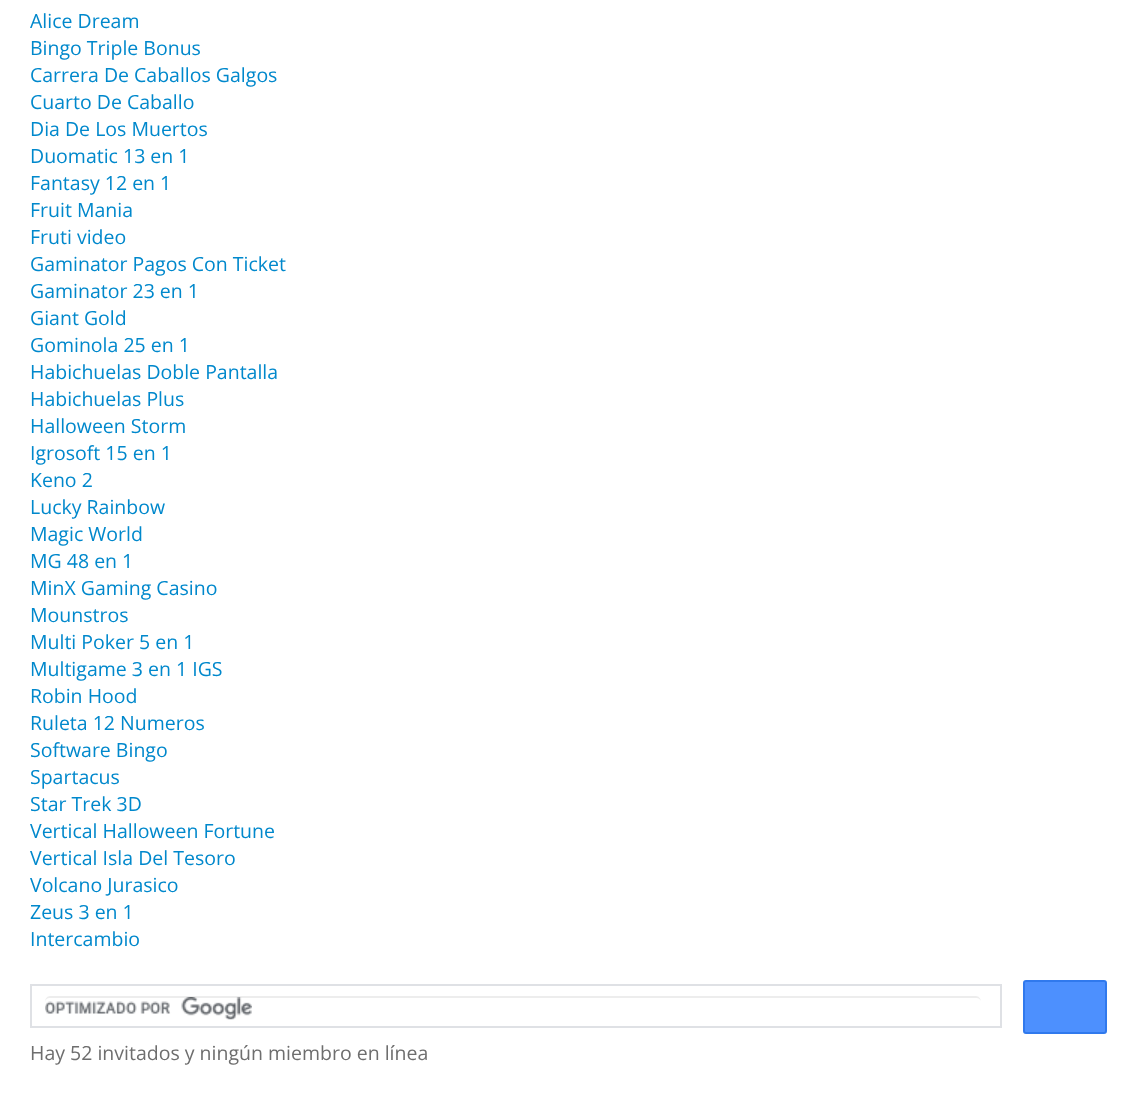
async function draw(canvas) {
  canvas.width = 1137
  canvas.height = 1109
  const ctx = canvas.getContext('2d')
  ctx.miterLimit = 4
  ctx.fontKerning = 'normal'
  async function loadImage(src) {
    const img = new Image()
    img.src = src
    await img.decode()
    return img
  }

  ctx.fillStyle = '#fff'
  ctx.fillRect(0, 0, 1137, 1109)
  ctx.font = '19.5px Open Sans'
  ctx.fillStyle = '#08c'
  ctx.fillText('Alice Dream', 30, 28)
  ctx.fillText('Bingo Triple Bonus', 30, 55)
  ctx.fillText('Carrera De Caballos Galgos', 30, 82)
  ctx.fillText('Cuarto De Caballo', 30, 109)
  ctx.fillText('Dia De Los Muertos', 30, 136)
  ctx.fillText('Duomatic 13 en 1', 30, 163)
  ctx.fillText('Fantasy 12 en 1', 30, 190)
  ctx.fillText('Fruit Mania', 30, 217)
  ctx.fillText('Fruti video', 30, 244)
  ctx.fillText('Gaminator Pagos Con Ticket', 30, 271)
  ctx.fillText('Gaminator 23 en 1', 30, 298)
  ctx.fillText('Giant Gold', 30, 325)
  ctx.fillText('Gominola 25 en 1', 30, 352)
  ctx.fillText('Habichuelas Doble Pantalla', 30, 379)
  ctx.fillText('Habichuelas Plus', 30, 406)
  ctx.fillText('Halloween Storm', 30, 433)
  ctx.fillText('Igrosoft 15 en 1', 30, 460)
  ctx.fillText('Keno 2', 30, 487)
  ctx.fillText('Lucky Rainbow', 30, 514)
  ctx.fillText('Magic World', 30, 541)
  ctx.fillText('MG 48 en 1', 30, 568)
  ctx.fillText('MinX Gaming Casino', 30, 595)
  ctx.fillText('Mounstros', 30, 622)
  ctx.fillText('Multi Poker 5 en 1', 30, 649)
  ctx.fillText('Multigame 3 en 1 IGS', 30, 676)
  ctx.fillText('Robin Hood', 30, 703)
  ctx.fillText('Ruleta 12 Numeros', 30, 730)
  ctx.fillText('Software Bingo', 30, 757)
  ctx.fillText('Spartacus', 30, 784)
  ctx.fillText('Star Trek 3D', 30, 811)
  ctx.fillText('Vertical Halloween Fortune', 30, 838)
  ctx.fillText('Vertical Isla Del Tesoro', 30, 865)
  ctx.fillText('Volcano Jurasico', 30, 892)
  ctx.fillText('Zeus 3 en 1', 30, 919)
  ctx.fillText('Intercambio', 30, 946)
  ctx.strokeStyle = '#dfe1e5'
  ctx.lineWidth = 2
  ctx.strokeRect(31, 985, 970, 42)
  ctx.drawImage(await loadImage('image0.png'), 45, 997, 207, 23)
  ctx.fillStyle = '#00000012'
  ctx.beginPath()
  ctx.moveTo(50, 998)
  ctx.lineTo(976, 998)
  ctx.bezierCurveTo(979, 998, 981, 1000, 981, 1002)
  ctx.bezierCurveTo(981, 999, 979, 996, 976, 996)
  ctx.lineTo(50, 996)
  ctx.bezierCurveTo(47, 996, 45, 999, 45, 1002)
  ctx.bezierCurveTo(45, 1000, 47, 998, 50, 998)
  ctx.closePath()
  ctx.fill()
  ctx.fillStyle = '#4d90fe'
  ctx.beginPath()
  ctx.roundRect(1024, 981, 82, 52, 2)
  ctx.fill()
  ctx.strokeStyle = '#3079ed'
  ctx.stroke()
  ctx.fillStyle = '#6e6e6e'
  ctx.fillText('Hay 52 invitados y ningún miembro en línea', 30, 1060)
}

draw(document.querySelector('canvas'))
